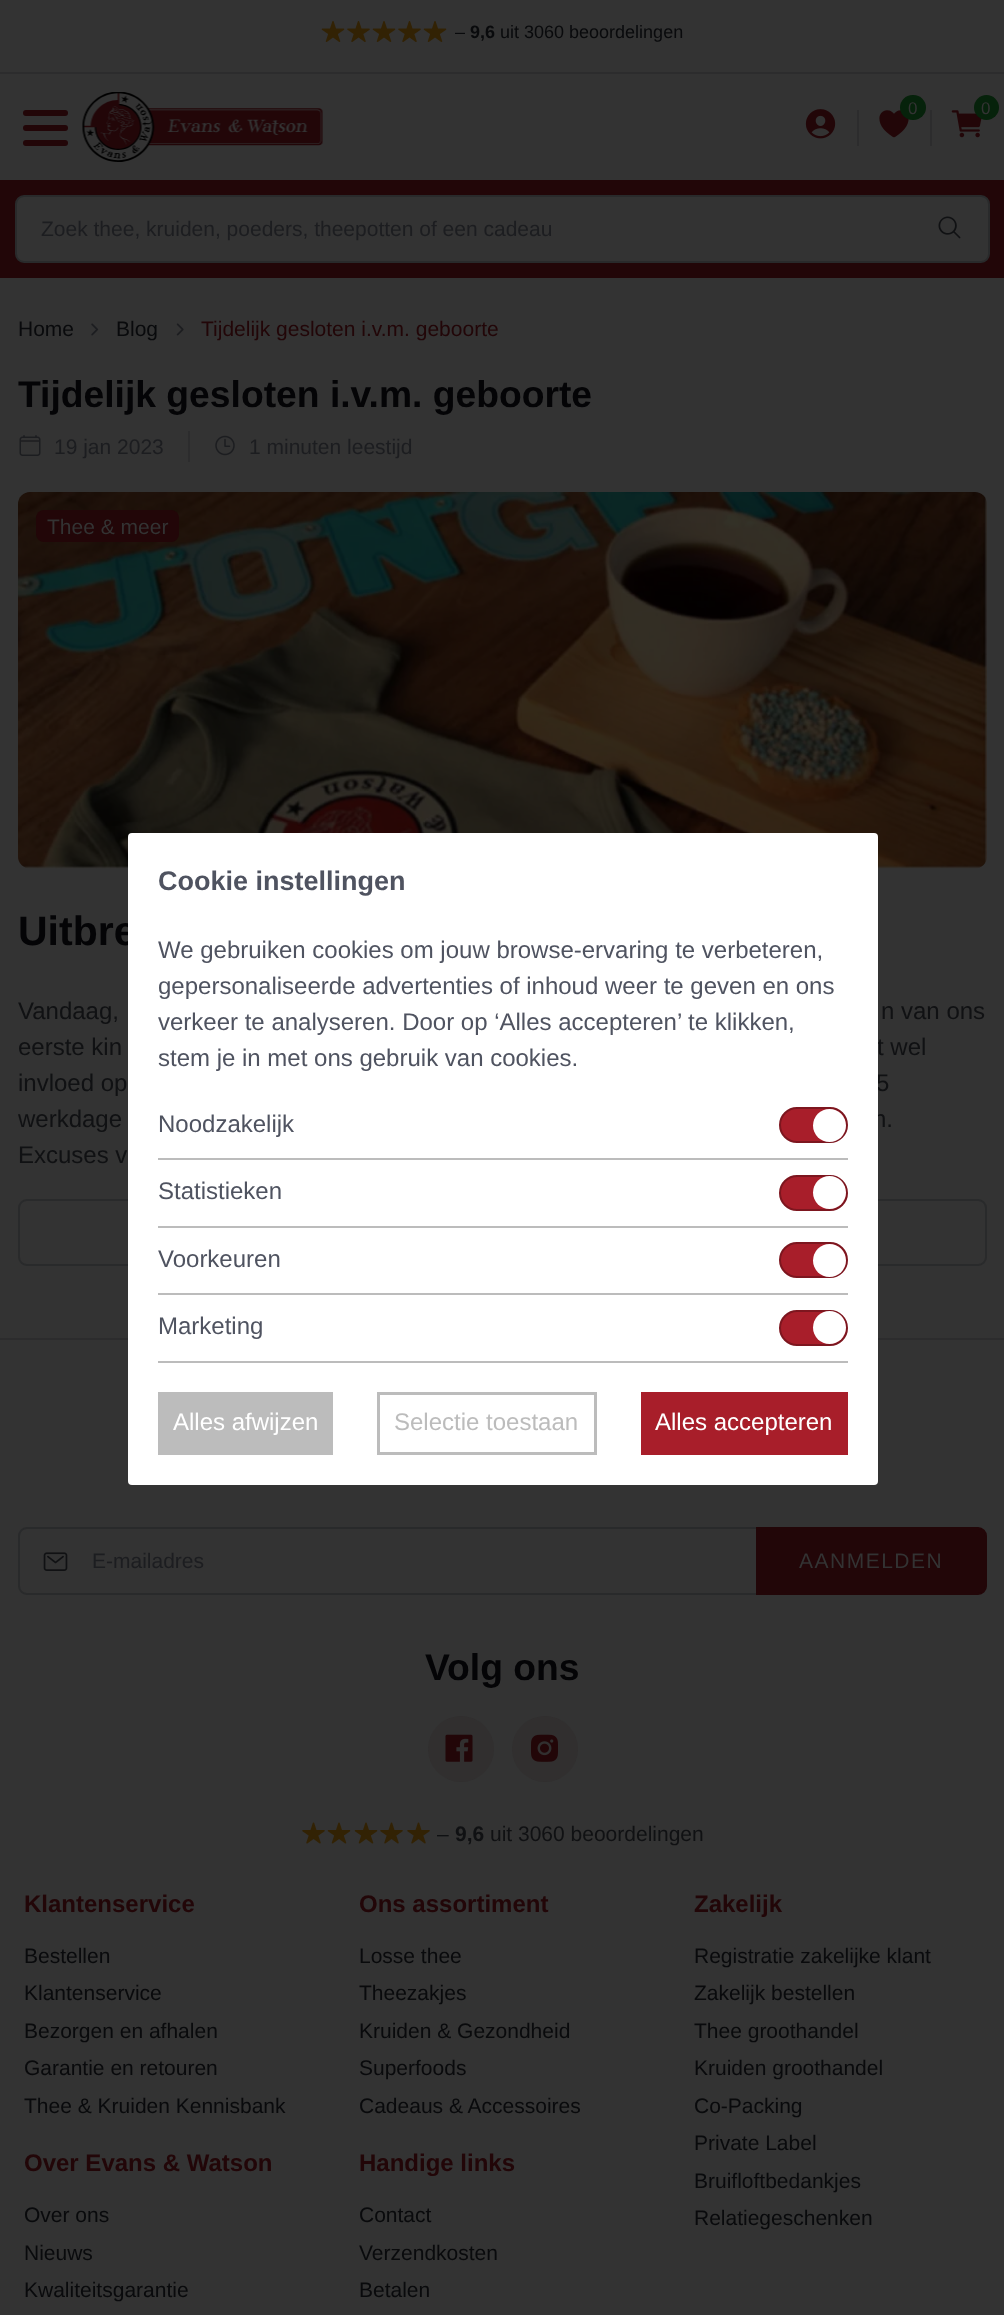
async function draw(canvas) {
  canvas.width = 1004
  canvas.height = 2315
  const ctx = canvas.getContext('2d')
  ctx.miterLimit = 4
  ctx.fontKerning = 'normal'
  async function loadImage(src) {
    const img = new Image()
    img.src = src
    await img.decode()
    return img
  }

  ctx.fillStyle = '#333'
  ctx.fillRect(0, 0, 1004, 2315)
  ctx.fillStyle = '#2c2c2d'
  ctx.fillRect(0, 72, 1004, 2)
  ctx.drawImage(await loadImage('image0.png'), 321, 21, 24, 21)
  ctx.drawImage(await loadImage('image1.png'), 347, 21, 23, 21)
  ctx.drawImage(await loadImage('image0.png'), 372, 21, 24, 21)
  ctx.drawImage(await loadImage('image1.png'), 398, 21, 23, 21)
  ctx.drawImage(await loadImage('image0.png'), 423, 21, 24, 21)
  ctx.font = '18px Liberation Sans'
  ctx.fillStyle = '#090a0c'
  ctx.fillText('–', 455, 38)
  ctx.font = 'bold 18px Liberation Sans'
  ctx.fillText('9,6', 470, 38)
  ctx.font = '18px Liberation Sans'
  ctx.fillText('uit 3060 beoordelingen', 500, 38)
  ctx.drawImage(await loadImage('image2.png'), 82, 92, 241, 70)
  ctx.drawImage(await loadImage('image3.png'), 805, 109, 31, 30)
  ctx.fillStyle = '#2c2c2d'
  ctx.fillRect(857, 110, 2, 36)
  ctx.drawImage(await loadImage('image4.png'), 879, 110, 30, 28)
  ctx.fillStyle = '#06220b'
  ctx.beginPath()
  ctx.roundRect(900, 95, 26, 25, 12.5)
  ctx.fill()
  ctx.font = '17px Liberation Sans'
  ctx.fillStyle = '#333'
  ctx.fillText('0', 908, 114)
  ctx.fillStyle = '#2c2c2d'
  ctx.fillRect(930, 110, 2, 36)
  ctx.drawImage(await loadImage('image5.png'), 951, 110, 31, 28)
  ctx.fillStyle = '#06220b'
  ctx.beginPath()
  ctx.arc(986.5, 107.5, 12.5, 0, 2 * Math.PI)
  ctx.fill()
  ctx.fillStyle = '#333'
  ctx.fillText('0', 981, 114)
  ctx.fillStyle = '#220608'
  ctx.beginPath()
  ctx.roundRect(23, 125, 45, 6, 3)
  ctx.fill()
  ctx.beginPath()
  ctx.roundRect(23, 110, 45, 6, 3)
  ctx.fill()
  ctx.beginPath()
  ctx.roundRect(23, 140, 45, 6, 3)
  ctx.fill()
  ctx.fillRect(0, 180, 1004, 98)
  ctx.fillStyle = '#333'
  ctx.beginPath()
  ctx.roundRect(16, 196, 973, 66, 8)
  ctx.fill()
  ctx.strokeStyle = '#292a2b'
  ctx.lineWidth = 2
  ctx.stroke()
  ctx.font = '21px Liberation Sans'
  ctx.fillStyle = '#1c1d20'
  ctx.fillText('Zoek thee, kruiden, poeders, theepotten of een cadeau', 41, 236)
  ctx.drawImage(await loadImage('image6.png'), 938, 216, 23, 23)
  ctx.fillStyle = '#090a0c'
  ctx.fillText('Home', 18, 336)
  ctx.drawImage(await loadImage('image7.png'), 91, 323, 8, 13)
  ctx.fillText('Blog', 116, 336)
  ctx.drawImage(await loadImage('image8.png'), 176, 323, 8, 13)
  ctx.fillStyle = '#220608'
  ctx.fillText('Tijdelijk gesloten i.v.m. geboorte', 201, 336)
  ctx.font = 'bold 37.25px Liberation Sans'
  ctx.fillStyle = '#040406'
  ctx.fillText('Tijdelijk gesloten i.v.m. geboorte', 18, 407)
  ctx.fillStyle = '#2c2c2d'
  ctx.fillRect(188, 431, 2, 31)
  ctx.drawImage(await loadImage('image9.png'), 19, 435, 22, 21)
  ctx.font = '21px Liberation Sans'
  ctx.fillStyle = '#1c1d20'
  ctx.fillText('19 jan 2023', 54, 454)
  ctx.drawImage(await loadImage('image10.png'), 215, 435, 20, 21)
  ctx.fillText('1 minuten leestijd', 249, 454)
  ctx.drawImage(await loadImage('image11.png'), 18, 492, 969, 377)
  ctx.fillStyle = '#220608'
  ctx.beginPath()
  ctx.roundRect(36, 510, 143, 32, 8)
  ctx.fill()
  ctx.fillStyle = '#333'
  ctx.fillText('Thee & meer', 47, 534)
  ctx.font = 'bold 41px Liberation Sans'
  ctx.fillStyle = '#040406'
  ctx.fillText('Uitbre', 18, 945)
  ctx.font = '24px Liberation Sans'
  ctx.fillStyle = '#101113'
  ctx.fillText('Vandaag,', 18, 1019)
  ctx.fillText('n van ons', 881, 1019)
  ctx.fillText('eerste kin', 18, 1055)
  ctx.fillText('t wel', 877, 1055)
  ctx.fillText('invloed op', 18, 1091)
  ctx.fillText('5', 876, 1091)
  ctx.fillText('werkdage', 18, 1127)
  ctx.fillText('n.', 873, 1127)
  ctx.fillText('Excuses v', 18, 1163)
  ctx.beginPath()
  ctx.roundRect(19, 1200, 967, 65, 8)
  ctx.stroke()
  ctx.fillStyle = '#2c2c2d'
  ctx.fillRect(0, 1338, 1004, 2)
  ctx.fillStyle = '#fff'
  ctx.beginPath()
  ctx.roundRect(128, 833, 750, 652, 4)
  ctx.fill()
  ctx.font = 'bold 27px Liberation Sans'
  ctx.fillStyle = '#4f5360'
  ctx.fillText('Cookie instellingen', 158, 890)
  ctx.font = '24px Liberation Sans'
  ctx.fillText('We gebruiken cookies om jouw browse-ervaring te verbeteren,', 158, 958)
  ctx.fillText('gepersonaliseerde advertenties of inhoud weer te geven en ons', 158, 994)
  ctx.fillText('verkeer te analyseren. Door op ‘Alles accepteren’ te klikken,', 158, 1030)
  ctx.fillText('stem je in met ons gebruik van cookies.', 158, 1066)
  ctx.fillStyle = '#bcbcbc'
  ctx.fillRect(158, 1158, 690, 2)
  ctx.fillStyle = '#4f5360'
  ctx.fillText('Noodzakelijk', 158, 1132)
  ctx.fillStyle = '#a81e2a'
  ctx.beginPath()
  ctx.roundRect(780, 1108, 67, 34, 17)
  ctx.fill()
  ctx.strokeStyle = '#7d161f'
  ctx.stroke()
  ctx.fillStyle = '#fff'
  ctx.beginPath()
  ctx.arc(829.5, 1125.5, 16.5, 0, 2 * Math.PI)
  ctx.fill()
  ctx.fillStyle = '#bcbcbc'
  ctx.fillRect(158, 1226, 690, 2)
  ctx.fillStyle = '#4f5360'
  ctx.fillText('Statistieken', 158, 1199)
  ctx.fillStyle = '#a81e2a'
  ctx.beginPath()
  ctx.roundRect(780, 1176, 67, 34, 17)
  ctx.fill()
  ctx.stroke()
  ctx.fillStyle = '#fff'
  ctx.beginPath()
  ctx.arc(829.5, 1192.5, 16.5, 0, 2 * Math.PI)
  ctx.fill()
  ctx.fillStyle = '#bcbcbc'
  ctx.fillRect(158, 1293, 690, 2)
  ctx.fillStyle = '#4f5360'
  ctx.fillText('Voorkeuren', 158, 1267)
  ctx.fillStyle = '#a81e2a'
  ctx.beginPath()
  ctx.roundRect(780, 1243, 67, 34, 17)
  ctx.fill()
  ctx.stroke()
  ctx.fillStyle = '#fff'
  ctx.beginPath()
  ctx.arc(829.5, 1260.5, 16.5, 0, 2 * Math.PI)
  ctx.fill()
  ctx.fillStyle = '#bcbcbc'
  ctx.fillRect(158, 1361, 690, 2)
  ctx.fillStyle = '#4f5360'
  ctx.fillText('Marketing', 158, 1334)
  ctx.fillStyle = '#a81e2a'
  ctx.beginPath()
  ctx.roundRect(780, 1311, 67, 34, 17)
  ctx.fill()
  ctx.stroke()
  ctx.fillStyle = '#fff'
  ctx.beginPath()
  ctx.arc(829.5, 1327.5, 16.5, 0, 2 * Math.PI)
  ctx.fill()
  ctx.fillStyle = '#bcbcbc'
  ctx.fillRect(158, 1392, 175, 63)
  ctx.fillStyle = '#fff'
  ctx.fillText('Alles afwijzen', 173, 1430)
  ctx.strokeStyle = '#bcbcbc'
  ctx.lineWidth = 3
  ctx.strokeRect(378.5, 1393.5, 217, 60)
  ctx.fillStyle = '#bcbcbc'
  ctx.fillText('Selectie toestaan', 394, 1430)
  ctx.fillStyle = '#a81e2a'
  ctx.fillRect(641, 1392, 207, 63)
  ctx.fillStyle = '#fff'
  ctx.fillText('Alles accepteren', 655, 1430)
  ctx.beginPath()
  ctx.roundRect(19, 1528, 738, 66, [8, 0, 0, 8])
  ctx.strokeStyle = '#292a2b'
  ctx.lineWidth = 2
  ctx.stroke()
  ctx.drawImage(await loadImage('image12.png'), 43, 1552, 25, 19)
  ctx.font = '21px Liberation Sans'
  ctx.fillStyle = '#1c1d20'
  ctx.fillText('E-mailadres', 92, 1568)
  ctx.fillStyle = '#220608'
  ctx.beginPath()
  ctx.roundRect(757, 1528, 229, 66, [0, 8, 8, 0])
  ctx.fill()
  ctx.strokeStyle = '#220608'
  ctx.stroke()
  ctx.letterSpacing = '1.5px'
  ctx.fillStyle = '#333'
  ctx.fillText('AANMELDEN', 799, 1568)
  ctx.letterSpacing = '0px'
  ctx.font = 'bold 37.25px Liberation Sans'
  ctx.fillStyle = '#040406'
  ctx.fillText('Volg ons', 425, 1680)
  ctx.fillStyle = '#312f2f'
  ctx.beginPath()
  ctx.arc(461, 1749, 33, 0, 2 * Math.PI)
  ctx.fill()
  ctx.drawImage(await loadImage('image13.png'), 445, 1734, 28, 28)
  ctx.beginPath()
  ctx.arc(545, 1749, 33, 0, 2 * Math.PI)
  ctx.fill()
  ctx.drawImage(await loadImage('image14.png'), 531, 1734, 27, 28)
  ctx.drawImage(await loadImage('image15.png'), 302, 1822, 23, 22)
  ctx.drawImage(await loadImage('image16.png'), 327, 1822, 24, 22)
  ctx.drawImage(await loadImage('image16.png'), 354, 1822, 24, 22)
  ctx.drawImage(await loadImage('image15.png'), 380, 1822, 23, 22)
  ctx.drawImage(await loadImage('image15.png'), 407, 1822, 23, 22)
  ctx.font = '21px Liberation Sans'
  ctx.fillStyle = '#101113'
  ctx.fillText('–', 437, 1841)
  ctx.font = 'bold 21px Liberation Sans'
  ctx.fillText('9,6', 455, 1841)
  ctx.font = '21px Liberation Sans'
  ctx.fillText('uit 3060 beoordelingen', 490, 1841)
  ctx.font = 'bold 24px Liberation Sans'
  ctx.fillStyle = '#220608'
  ctx.fillText('Klantenservice', 24, 1912)
  ctx.font = '21px Liberation Sans'
  ctx.fillStyle = '#090a0c'
  ctx.fillText('Bestellen', 24, 1963)
  ctx.fillText('Klantenservice', 24, 2000)
  ctx.fillText('Bezorgen en afhalen', 24, 2038)
  ctx.fillText('Garantie en retouren', 24, 2075)
  ctx.fillText('Thee & Kruiden Kennisbank', 24, 2113)
  ctx.font = 'bold 24px Liberation Sans'
  ctx.fillStyle = '#220608'
  ctx.fillText('Over Evans & Watson', 24, 2171)
  ctx.font = '21px Liberation Sans'
  ctx.fillStyle = '#090a0c'
  ctx.fillText('Over ons', 24, 2222)
  ctx.fillText('Nieuws', 24, 2260)
  ctx.fillText('Kwaliteitsgarantie', 24, 2297)
  ctx.font = 'bold 24px Liberation Sans'
  ctx.fillStyle = '#220608'
  ctx.fillText('Ons assortiment', 359, 1912)
  ctx.font = '21px Liberation Sans'
  ctx.fillStyle = '#090a0c'
  ctx.fillText('Losse thee', 359, 1963)
  ctx.fillText('Theezakjes', 359, 2000)
  ctx.fillText('Kruiden & Gezondheid', 359, 2038)
  ctx.fillText('Superfoods', 359, 2075)
  ctx.fillText('Cadeaus & Accessoires', 359, 2113)
  ctx.font = 'bold 24px Liberation Sans'
  ctx.fillStyle = '#220608'
  ctx.fillText('Handige links', 359, 2171)
  ctx.font = '21px Liberation Sans'
  ctx.fillStyle = '#090a0c'
  ctx.fillText('Contact', 359, 2222)
  ctx.fillText('Verzendkosten', 359, 2260)
  ctx.fillText('Betalen', 359, 2297)
  ctx.font = 'bold 24px Liberation Sans'
  ctx.fillStyle = '#220608'
  ctx.fillText('Zakelijk', 694, 1912)
  ctx.font = '21px Liberation Sans'
  ctx.fillStyle = '#090a0c'
  ctx.fillText('Registratie zakelijke klant', 694, 1963)
  ctx.fillText('Zakelijk bestellen', 694, 2000)
  ctx.fillText('Thee groothandel', 694, 2038)
  ctx.fillText('Kruiden groothandel', 694, 2075)
  ctx.fillText('Co-Packing', 694, 2113)
  ctx.fillText('Private Label', 694, 2150)
  ctx.fillText('Bruifloftbedankjes', 694, 2188)
  ctx.fillText('Relatiegeschenken', 694, 2225)
}

draw(document.querySelector('canvas'))
